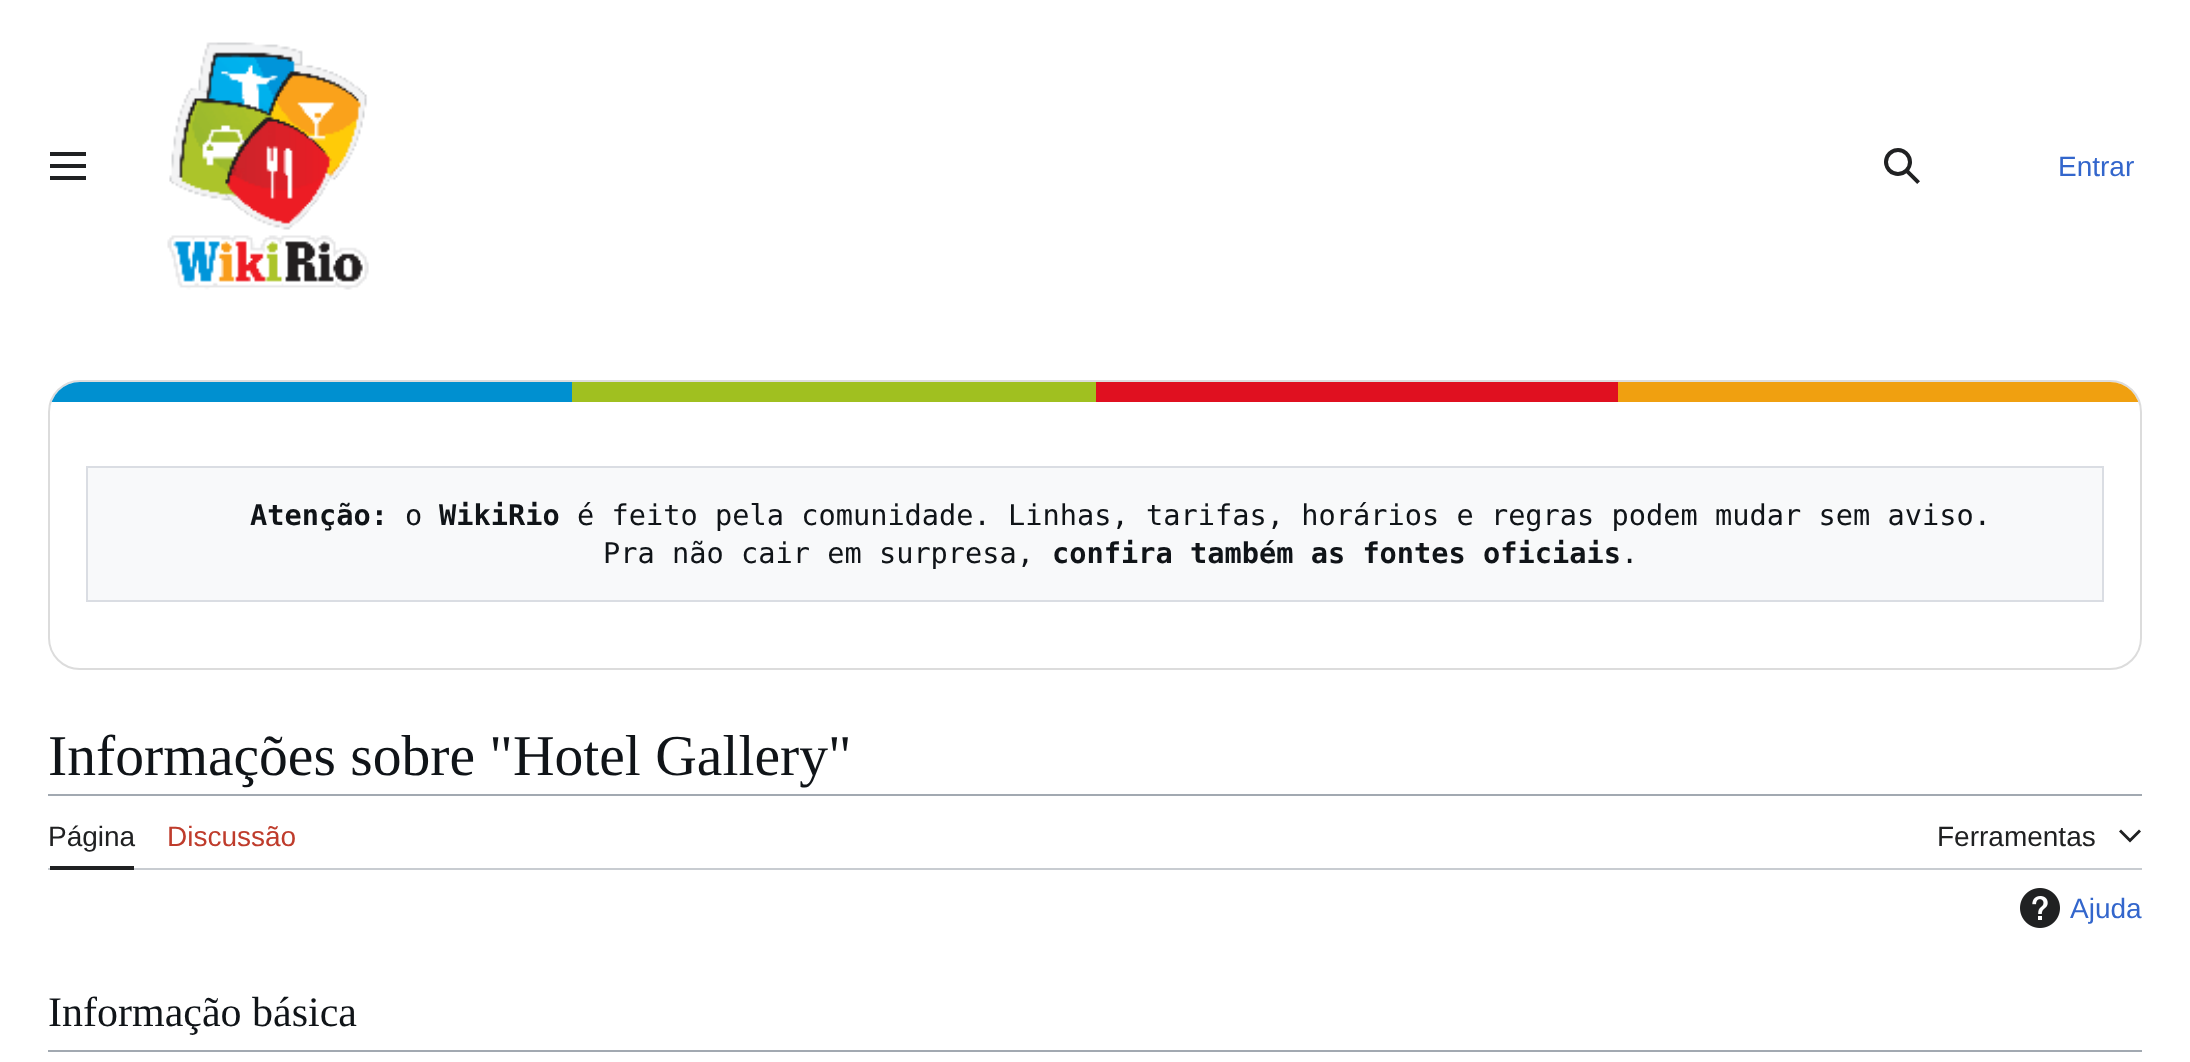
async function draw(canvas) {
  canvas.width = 2190
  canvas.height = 1062
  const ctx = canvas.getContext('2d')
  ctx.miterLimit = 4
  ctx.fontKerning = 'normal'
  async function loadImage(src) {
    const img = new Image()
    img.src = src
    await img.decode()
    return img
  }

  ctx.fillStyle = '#fff'
  ctx.fillRect(0, 0, 2190, 1062)
  ctx.drawImage(await loadImage('image0.png'), 50, 152, 36, 28)
  ctx.drawImage(await loadImage('image1.png'), 167, 42, 202, 248)
  ctx.drawImage(await loadImage('image2.png'), 1884, 148, 36, 36)
  ctx.font = '28px Liberation Sans'
  ctx.fillStyle = '#36c'
  ctx.fillText('Entrar', 2058, 176)
  ctx.beginPath()
  ctx.roundRect(49, 381, 2092, 288, 31)
  ctx.strokeStyle = '#dcdcdc'
  ctx.lineWidth = 2
  ctx.stroke()
  ctx.save()
  ctx.beginPath()
  ctx.roundRect(50, 382, 2090, 286, 30)
  ctx.clip()
  ctx.fillStyle = '#0090d0'
  ctx.fillRect(51, 382, 521, 20)
  ctx.restore()
  ctx.fillStyle = '#a0c020'
  ctx.fillRect(572, 382, 524, 20)
  ctx.fillStyle = '#e01020'
  ctx.fillRect(1096, 382, 522, 20)
  ctx.save()
  ctx.beginPath()
  ctx.roundRect(50, 382, 2090, 286, 30)
  ctx.clip()
  ctx.fillStyle = '#f0a010'
  ctx.fillRect(1618, 382, 521, 20)
  ctx.restore()
  ctx.fillStyle = '#f8f9fa'
  ctx.beginPath()
  ctx.rect(87, 467, 2016, 134)
  ctx.fill()
  ctx.strokeStyle = '#dadde3'
  ctx.stroke()
  ctx.font = 'bold 28.65px DejaVu Sans Mono'
  ctx.fillStyle = '#101418'
  ctx.fillText('Atenção:', 250, 525)
  ctx.font = '28.65px DejaVu Sans Mono'
  ctx.fillText('o', 405, 525)
  ctx.font = 'bold 28.65px DejaVu Sans Mono'
  ctx.fillText('WikiRio', 439, 525)
  ctx.font = '28.65px DejaVu Sans Mono'
  ctx.fillText('é feito pela comunidade. Linhas, tarifas, horários e regras podem mudar sem aviso.', 577, 525)
  ctx.fillText('Pra não cair em surpresa,', 603, 563)
  ctx.font = 'bold 28.65px DejaVu Sans Mono'
  ctx.fillText('confira também as fontes oficiais', 1052, 563)
  ctx.font = '28.65px DejaVu Sans Mono'
  ctx.fillText('.', 1621, 563)
  ctx.font = '57.6px Liberation Serif'
  ctx.fillText('Informações sobre "Hotel Gallery"', 48, 775)
  ctx.fillStyle = '#a2a9b1'
  ctx.fillRect(48, 794, 2094, 2)
  ctx.fillStyle = '#c8ccd1'
  ctx.fillRect(48, 868, 2094, 2)
  ctx.fillStyle = '#202122'
  ctx.fillRect(50, 866, 84, 4)
  ctx.font = '28px Liberation Sans'
  ctx.fillText('Página', 48, 846)
  ctx.fillStyle = '#bf3c2c'
  ctx.fillText('Discussão', 167, 846)
  ctx.fillStyle = '#202122'
  ctx.fillText('Ferramentas', 1937, 846)
  ctx.beginPath()
  ctx.moveTo(2139, 829.5)
  ctx.lineTo(2130, 838.5)
  ctx.lineTo(2121, 829.5)
  ctx.lineTo(2119, 831.5)
  ctx.lineTo(2130, 842.5)
  ctx.lineTo(2141, 831.5)
  ctx.closePath()
  ctx.fill()
  ctx.drawImage(await loadImage('image3.png'), 2020, 888, 40, 40)
  ctx.fillStyle = '#36c'
  ctx.fillText('Ajuda', 2070, 918)
  ctx.fillStyle = '#a2a9b1'
  ctx.fillRect(48, 1050, 2094, 2)
  ctx.font = '42px Liberation Serif'
  ctx.fillStyle = '#101418'
  ctx.fillText('Informação básica', 48, 1026)
}

draw(document.querySelector('canvas'))
